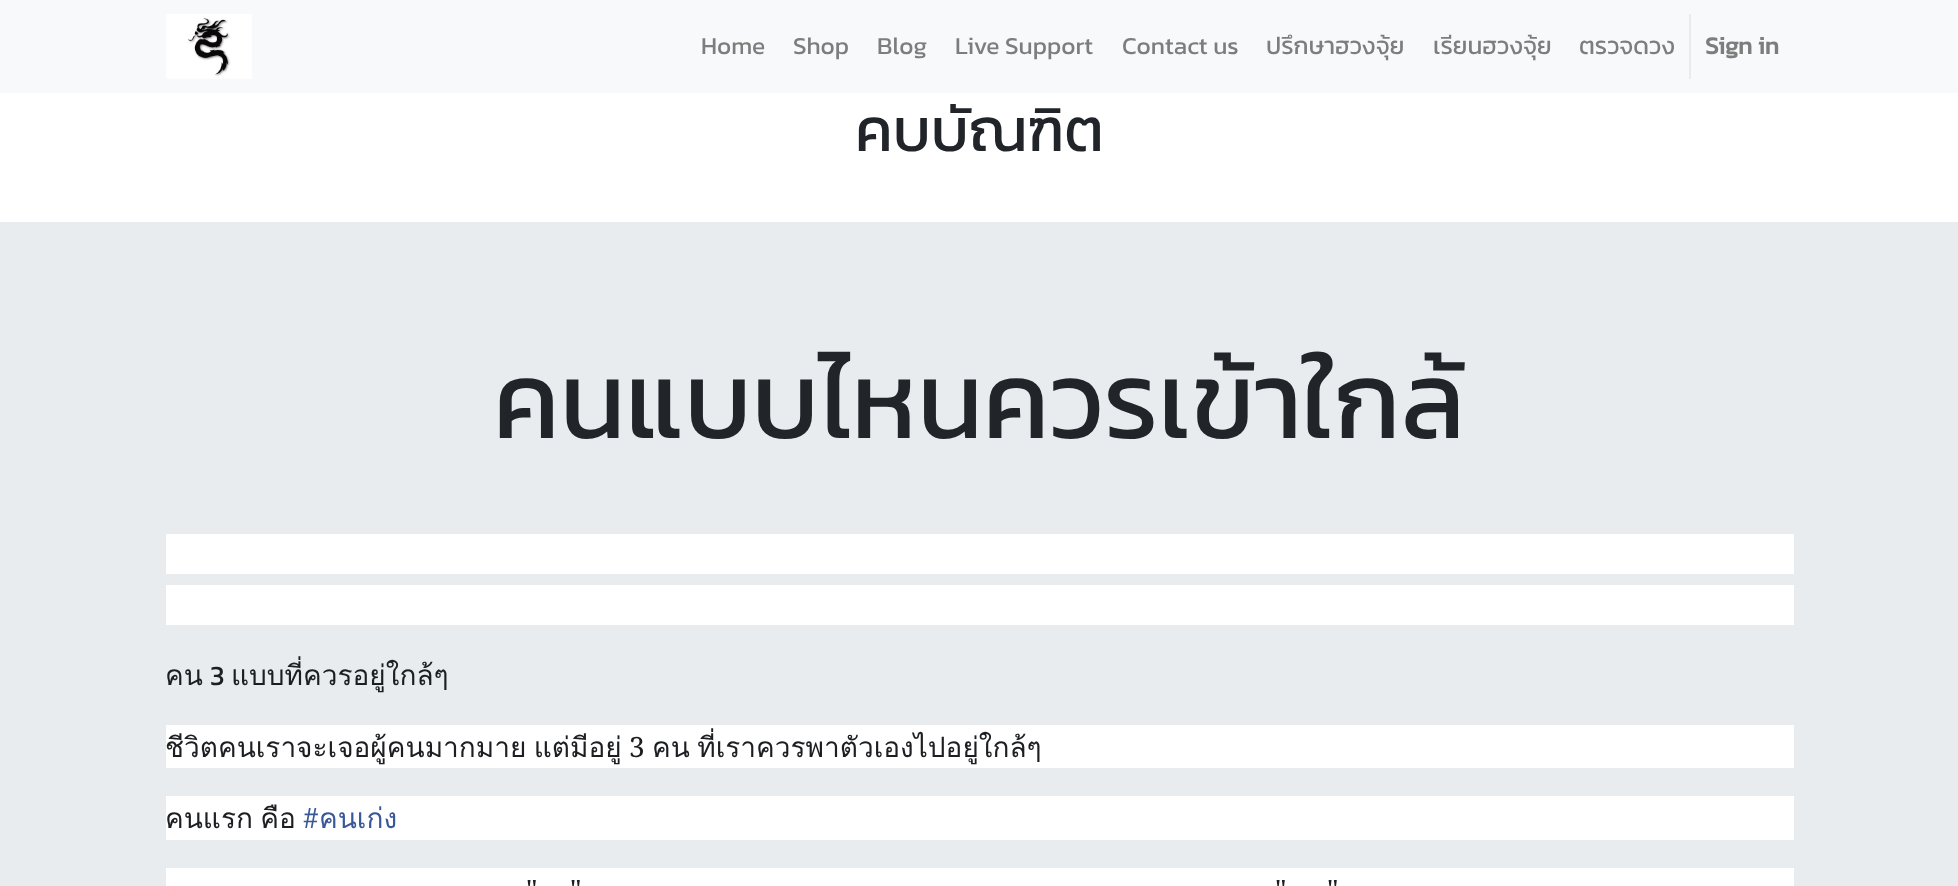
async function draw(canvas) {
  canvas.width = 1958
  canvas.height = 886
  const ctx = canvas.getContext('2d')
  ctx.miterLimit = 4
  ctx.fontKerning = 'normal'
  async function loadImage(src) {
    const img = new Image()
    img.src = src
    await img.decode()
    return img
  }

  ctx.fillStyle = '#fff'
  ctx.fillRect(0, 0, 1958, 886)
  ctx.fillStyle = '#f8f9fa'
  ctx.fillRect(0, 0, 1958, 93)
  ctx.drawImage(await loadImage('image0.png'), 166, 14, 86, 65)
  ctx.font = '24.5px Kanit'
  ctx.fillStyle = '#7c7d7d'
  ctx.fillText('Home', 701, 54)
  ctx.fillText('Shop', 793, 54)
  ctx.fillText('Blog', 877, 54)
  ctx.fillText('Live Support', 955, 54)
  ctx.fillText('Contact us', 1122, 54)
  ctx.fillText('ปรึกษาฮวงจุ้ย', 1266, 54)
  ctx.fillText('เรียนฮวงจุ้ย', 1433, 54)
  ctx.fillText('ตรวจดวง', 1579, 54)
  ctx.fillStyle = '#e9ecef'
  ctx.fillRect(1689, 14, 2, 65)
  ctx.font = 'bold 24.5px Kanit'
  ctx.fillStyle = '#7c7d7d'
  ctx.fillText('Sign in', 1705, 54)
  ctx.font = '61.25px Kanit'
  ctx.fillStyle = '#212529'
  ctx.fillText('คบบัณฑิต', 855, 151)
  ctx.fillStyle = '#e9ecef'
  ctx.fillRect(0, 222, 1958, 664)
  ctx.font = '108.5px Kanit'
  ctx.fillStyle = '#212529'
  ctx.fillText('คนแบบไหนควรเข้าใกล้', 493, 438)
  ctx.fillStyle = '#fff'
  ctx.fillRect(166, 534, 1628, 40)
  ctx.fillRect(166, 585, 1628, 40)
  ctx.font = '28px Loma'
  ctx.fillStyle = '#1c1e21'
  ctx.fillText('คน', 165, 685)
  ctx.font = '28px Kanit'
  ctx.fillText('3', 210, 685)
  ctx.font = '28px Loma'
  ctx.fillText('แบบที่ควรอยู่ใกล้ๆ', 231, 685)
  ctx.fillStyle = '#fff'
  ctx.fillRect(166, 725, 1628, 43)
  ctx.wordSpacing = '-2px'
  ctx.fillStyle = '#1c1e21'
  ctx.fillText('ชีวิตคนเราจะเจอผู้คนมากมาย แต่มีอยู่', 165, 757)
  ctx.wordSpacing = '0px'
  ctx.font = '28px Noto Serif'
  ctx.fillText('3', 629, 757)
  ctx.wordSpacing = '-2px'
  ctx.font = '28px Loma'
  ctx.fillText('คน ที่เราควรพาตัวเองไปอยู่ใกล้ๆ', 652, 757)
  ctx.fillStyle = '#fff'
  ctx.fillRect(166, 796, 1628, 44)
  ctx.fillStyle = '#1c1e21'
  ctx.fillText('คนแรก คือ', 165, 828)
  ctx.wordSpacing = '0px'
  ctx.font = '28px Noto Serif'
  ctx.fillStyle = '#385898'
  ctx.fillText('#', 303, 828)
  ctx.font = '28px Loma'
  ctx.fillText('คนเก่ง', 319, 828)
  ctx.fillStyle = '#fff'
  ctx.fillRect(166, 868, 1628, 18)
  ctx.font = '28px Noto Serif'
  ctx.fillStyle = '#1c1e21'
  ctx.fillText('"', 526, 900)
  ctx.fillText('"', 570, 900)
  ctx.fillText('"', 1275, 900)
  ctx.fillText('"', 1327, 900)
}

draw(document.querySelector('canvas'))
